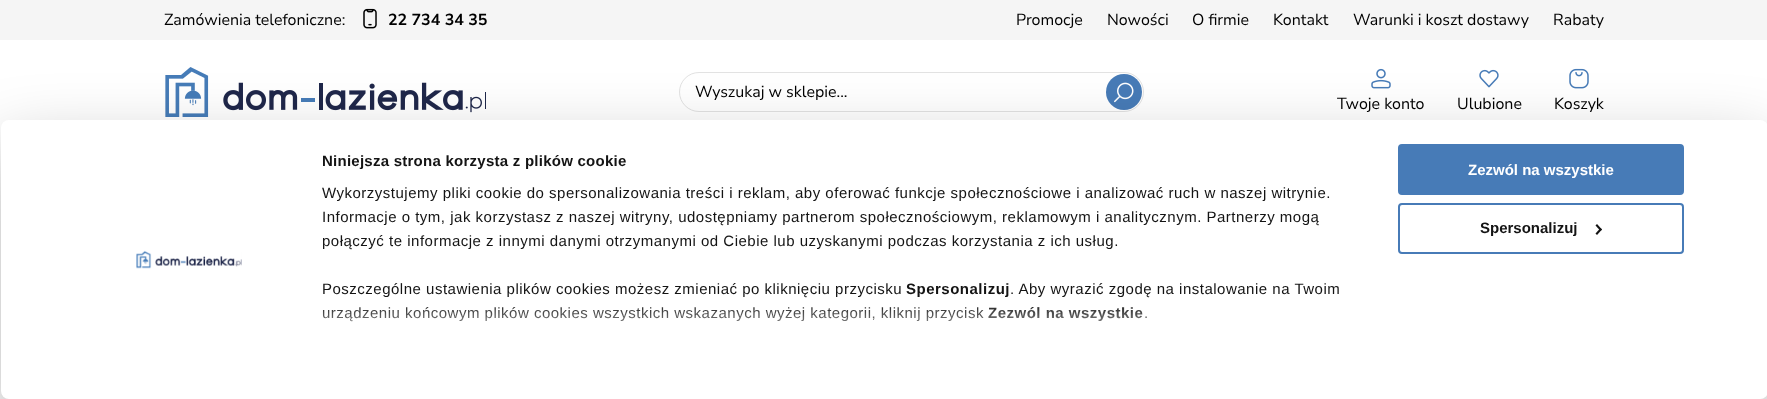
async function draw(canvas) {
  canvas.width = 1767
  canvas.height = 399
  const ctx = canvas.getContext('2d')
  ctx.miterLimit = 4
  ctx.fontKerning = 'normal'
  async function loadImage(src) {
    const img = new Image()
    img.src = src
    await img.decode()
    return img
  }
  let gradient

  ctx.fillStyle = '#fff'
  ctx.fillRect(0, 0, 1767, 399)
  ctx.fillStyle = '#f5f5f5'
  ctx.fillRect(0, 0, 1767, 40)
  ctx.font = '16px Nunito Sans'
  ctx.fillStyle = '#000'
  ctx.fillText('Zamówienia telefoniczne:', 164, 25)
  ctx.drawImage(await loadImage('image0.png'), 363, 8, 14, 21)
  ctx.font = 'bold 16px Nunito Sans'
  ctx.fillText('22 734 34 35', 388, 25)
  ctx.font = '16px Nunito Sans'
  ctx.fillText('Promocje', 1016, 25)
  ctx.fillText('Nowości', 1107, 25)
  ctx.fillText('O firmie', 1192, 25)
  ctx.fillText('Kontakt', 1273, 25)
  ctx.fillText('Warunki i koszt dostawy', 1353, 25)
  ctx.fillText('Rabaty', 1553, 25)
  ctx.drawImage(await loadImage('image1.png'), 165, 67, 321, 50)
  ctx.beginPath()
  ctx.roundRect(679.5, 72.5, 464, 39, 19.5)
  ctx.strokeStyle = '#e2e2e2'
  ctx.stroke()
  ctx.fillText('Wyszukaj w sklepie...', 695, 97)
  ctx.fillStyle = '#477bb7'
  ctx.beginPath()
  ctx.arc(1124, 92, 18, 0, 2 * Math.PI)
  ctx.fill()
  ctx.drawImage(await loadImage('image2.png'), 1114, 82, 20, 21)
  ctx.drawImage(await loadImage('image3.png'), 1371, 68, 20, 21)
  ctx.fillStyle = '#000'
  ctx.fillText('Twoje konto', 1337, 109)
  ctx.drawImage(await loadImage('image4.png'), 1479, 69, 20, 19)
  ctx.fillText('Ulubione', 1457, 109)
  ctx.drawImage(await loadImage('image5.png'), 1569, 68, 20, 21)
  ctx.fillText('Koszyk', 1554, 109)
  ctx.fillStyle = '#0000004d'
  ctx.filter = 'blur(35px)'
  ctx.beginPath()
  ctx.roundRect(1, 150, 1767, 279, 8)
  ctx.fill()
  ctx.filter = 'none'
  ctx.fillStyle = '#fff'
  ctx.beginPath()
  ctx.roundRect(1, 120, 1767, 279, 8)
  ctx.fill()
  ctx.letterSpacing = '0.25px'
  ctx.font = 'bold 15px Liberation Sans'
  ctx.fillStyle = '#141414'
  ctx.fillText('Niniejsza strona korzysta z plików cookie', 322, 166)
  ctx.letterSpacing = '0.5px'
  ctx.font = '15px Liberation Sans'
  ctx.fillText('Wykorzystujemy pliki cookie do spersonalizowania treści i reklam, aby oferować funkcje społecznościowe i analizować ruch w naszej witrynie.', 322, 198)
  ctx.fillText('Informacje o tym, jak korzystasz z naszej witryny, udostępniamy partnerom społecznościowym, reklamowym i analitycznym. Partnerzy mogą', 322, 222)
  ctx.fillText('połączyć te informacje z innymi danymi otrzymanymi od Ciebie lub uzyskanymi podczas korzystania z ich usług.', 322, 246)
  ctx.fillText('Poszczególne ustawienia plików cookies możesz zmieniać po kliknięciu przycisku', 322, 294)
  ctx.font = 'bold 15px Liberation Sans'
  ctx.fillText('Spersonalizuj', 906, 294)
  ctx.font = '15px Liberation Sans'
  ctx.fillText('. Aby wyrazić zgodę na instalowanie na Twoim', 1010, 294)
  ctx.fillText('urządzeniu końcowym plików cookies wszystkich wskazanych wyżej kategorii, kliknij przycisk', 322, 318)
  ctx.font = 'bold 15px Liberation Sans'
  ctx.fillText('Zezwól na wszystkie', 988, 318)
  ctx.font = '15px Liberation Sans'
  ctx.fillText('.', 1144, 318)
  gradient = ctx.createLinearGradient(836, 377, 836, 302)
  gradient.addColorStop(0, '#fff')
  gradient.addColorStop(0.5, '#ffffffcc')
  gradient.addColorStop(1, '#ffffff00')
  ctx.fillStyle = gradient
  ctx.fillRect(322, 307, 825, 15)
  ctx.fillStyle = '#477bb7'
  ctx.beginPath()
  ctx.roundRect(1399, 145, 284, 49, 3)
  ctx.fill()
  ctx.strokeStyle = '#477bb7'
  ctx.lineWidth = 2
  ctx.stroke()
  ctx.letterSpacing = '0px'
  ctx.font = 'bold 15px Liberation Sans'
  ctx.fillStyle = '#fff'
  ctx.fillText('Zezwól na wszystkie', 1468, 175)
  ctx.beginPath()
  ctx.roundRect(1399, 204, 284, 49, 3)
  ctx.stroke()
  ctx.fillStyle = '#141414'
  ctx.fillText('Spersonalizuj', 1480, 233)
  ctx.beginPath()
  ctx.moveTo(1597, 224)
  ctx.lineTo(1602, 229.5)
  ctx.lineTo(1600.5, 231)
  ctx.lineTo(1595.5, 225.5)
  ctx.closePath()
  ctx.fill()
  ctx.beginPath()
  ctx.moveTo(1600.5, 228)
  ctx.lineTo(1602, 229.5)
  ctx.lineTo(1597, 235)
  ctx.lineTo(1595.5, 233.5)
  ctx.closePath()
  ctx.fill()
  ctx.drawImage(await loadImage('image6.png'), 136, 250, 106, 19)
}

draw(document.querySelector('canvas'))
